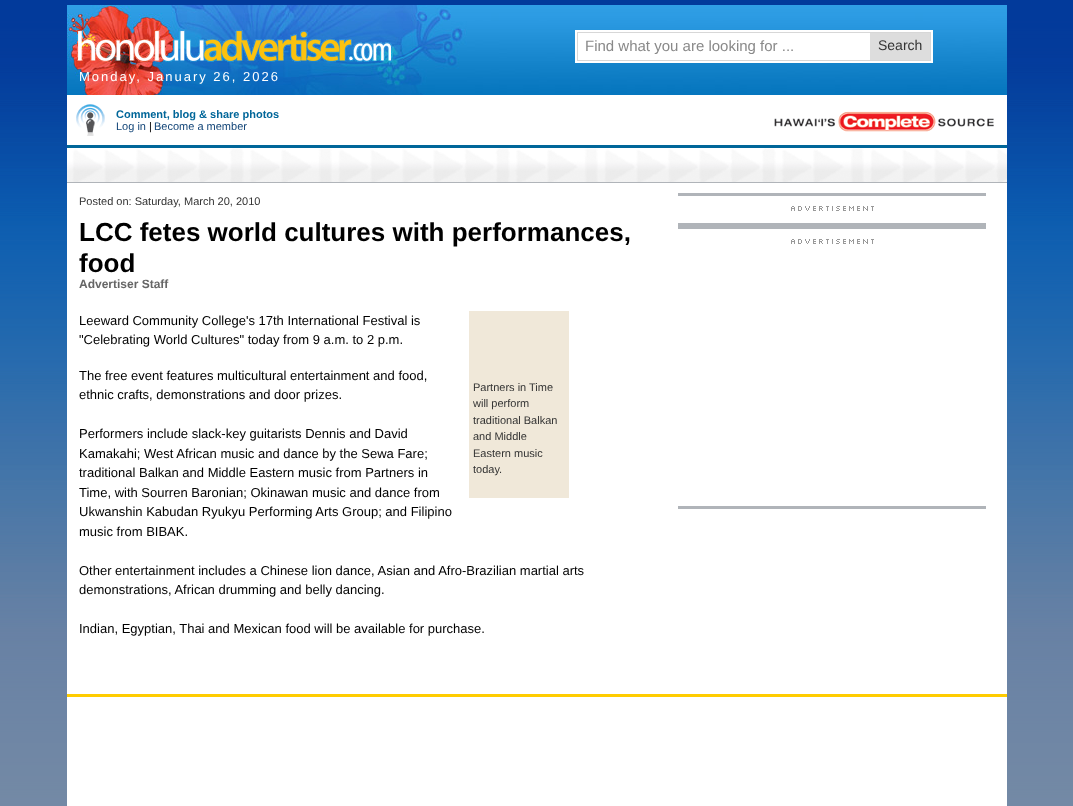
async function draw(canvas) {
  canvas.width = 1073
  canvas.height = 806
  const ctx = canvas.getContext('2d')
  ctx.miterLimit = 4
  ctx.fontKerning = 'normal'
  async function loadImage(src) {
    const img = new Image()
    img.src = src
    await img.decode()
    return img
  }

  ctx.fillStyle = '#fff'
  ctx.fillRect(0, 0, 1073, 806)
  ctx.drawImage(await loadImage('image0.png'), 0, 0, 1073, 806)
  ctx.drawImage(await loadImage('image1.png'), 67, 5, 940, 90)
  ctx.drawImage(await loadImage('image2.png'), 77, 30, 315, 32)
  ctx.fillRect(575, 30, 358, 33)
  ctx.strokeStyle = '#d7d7d7'
  ctx.strokeRect(577.5, 32.5, 353, 28)
  ctx.font = '15px Liberation Sans'
  ctx.fillStyle = '#898989'
  ctx.fillText('Find what you are looking for ...', 585, 51)
  ctx.fillStyle = '#ddd'
  ctx.fillRect(870, 33, 60, 27)
  ctx.font = '14px Liberation Sans'
  ctx.fillStyle = '#333'
  ctx.fillText('Search', 878, 50)
  ctx.letterSpacing = '2px'
  ctx.font = '13px Liberation Sans'
  ctx.fillStyle = '#fff'
  ctx.fillText('Monday, January 26, 2026', 79, 81)
  ctx.fillRect(67, 95, 940, 50)
  ctx.fillStyle = '#069'
  ctx.fillRect(67, 145, 940, 3)
  ctx.drawImage(await loadImage('image3.png'), 76, 104, 29, 32)
  ctx.letterSpacing = '0px'
  ctx.font = 'bold 11px Liberation Sans'
  ctx.fillText('Comment, blog & share photos', 116, 118)
  ctx.font = '11px Liberation Sans'
  ctx.fillStyle = '#147'
  ctx.fillText('Log in', 116, 130)
  ctx.fillStyle = '#000'
  ctx.fillText('|', 149, 130)
  ctx.fillStyle = '#147'
  ctx.fillText('Become a member', 154, 130)
  ctx.drawImage(await loadImage('image4.png'), 774, 111, 220, 21)
  ctx.drawImage(await loadImage('image5.png'), 67, 148, 940, 34)
  ctx.fillStyle = '#b0b4b9'
  ctx.fillRect(67, 182, 940, 1)
  ctx.fillStyle = '#fff'
  ctx.fillRect(67, 183, 940, 511)
  ctx.fillStyle = '#fc0'
  ctx.fillRect(67, 694, 940, 3)
  ctx.fillStyle = '#333'
  ctx.fillText('Posted on: Saturday, March 20, 2010', 79, 205)
  ctx.font = 'bold 26px Liberation Sans'
  ctx.fillStyle = '#000'
  ctx.fillText('LCC fetes world cultures with performances,', 79, 241)
  ctx.fillText('food', 79, 272)
  ctx.font = 'bold 12px Liberation Sans'
  ctx.fillStyle = '#666'
  ctx.fillText('Advertiser Staff', 79, 288)
  ctx.font = '13px Liberation Sans'
  ctx.fillStyle = '#000'
  ctx.fillText('Leeward Community College\'s 17th International Festival is', 79, 325)
  ctx.fillText('"Celebrating World Cultures" today from 9 a.m. to 2 p.m.', 79, 344)
  ctx.fillText('The free event features multicultural entertainment and food,', 79, 380)
  ctx.fillText('ethnic crafts, demonstrations and door prizes.', 79, 399)
  ctx.fillText('Performers include slack-key guitarists Dennis and David', 79, 438)
  ctx.fillText('Kamakahi; West African music and dance by the Sewa Fare;', 79, 458)
  ctx.fillText('traditional Balkan and Middle Eastern music from Partners in', 79, 477)
  ctx.fillText('Time, with Sourren Baronian; Okinawan music and dance from', 79, 497)
  ctx.fillText('Ukwanshin Kabudan Ryukyu Performing Arts Group; and Filipino', 79, 516)
  ctx.fillText('music from BIBAK.', 79, 536)
  ctx.fillText('Other entertainment includes a Chinese lion dance, Asian and Afro-Brazilian martial arts', 79, 575)
  ctx.fillText('demonstrations, African drumming and belly dancing.', 79, 594)
  ctx.fillText('Indian, Egyptian, Thai and Mexican food will be available for purchase.', 79, 633)
  ctx.fillStyle = '#f0e8d9'
  ctx.fillRect(469, 311, 100, 187)
  ctx.font = '11px Liberation Sans'
  ctx.fillStyle = '#333'
  ctx.fillText('Partners in Time', 473, 391)
  ctx.fillText('will perform', 473, 407)
  ctx.fillText('traditional Balkan', 473, 424)
  ctx.fillText('and Middle', 473, 440)
  ctx.fillText('Eastern music', 473, 457)
  ctx.fillText('today.', 473, 473)
  ctx.fillStyle = '#b0b4b9'
  ctx.fillRect(678, 193, 308, 3)
  ctx.fillRect(678, 223, 308, 6)
  ctx.drawImage(await loadImage('image6.png'), 791, 206, 83, 5)
  ctx.fillRect(678, 506, 308, 3)
  ctx.drawImage(await loadImage('image6.png'), 791, 239, 83, 5)
  ctx.fillStyle = '#fff'
  ctx.fillRect(67, 697, 940, 109)
}

draw(document.querySelector('canvas'))
